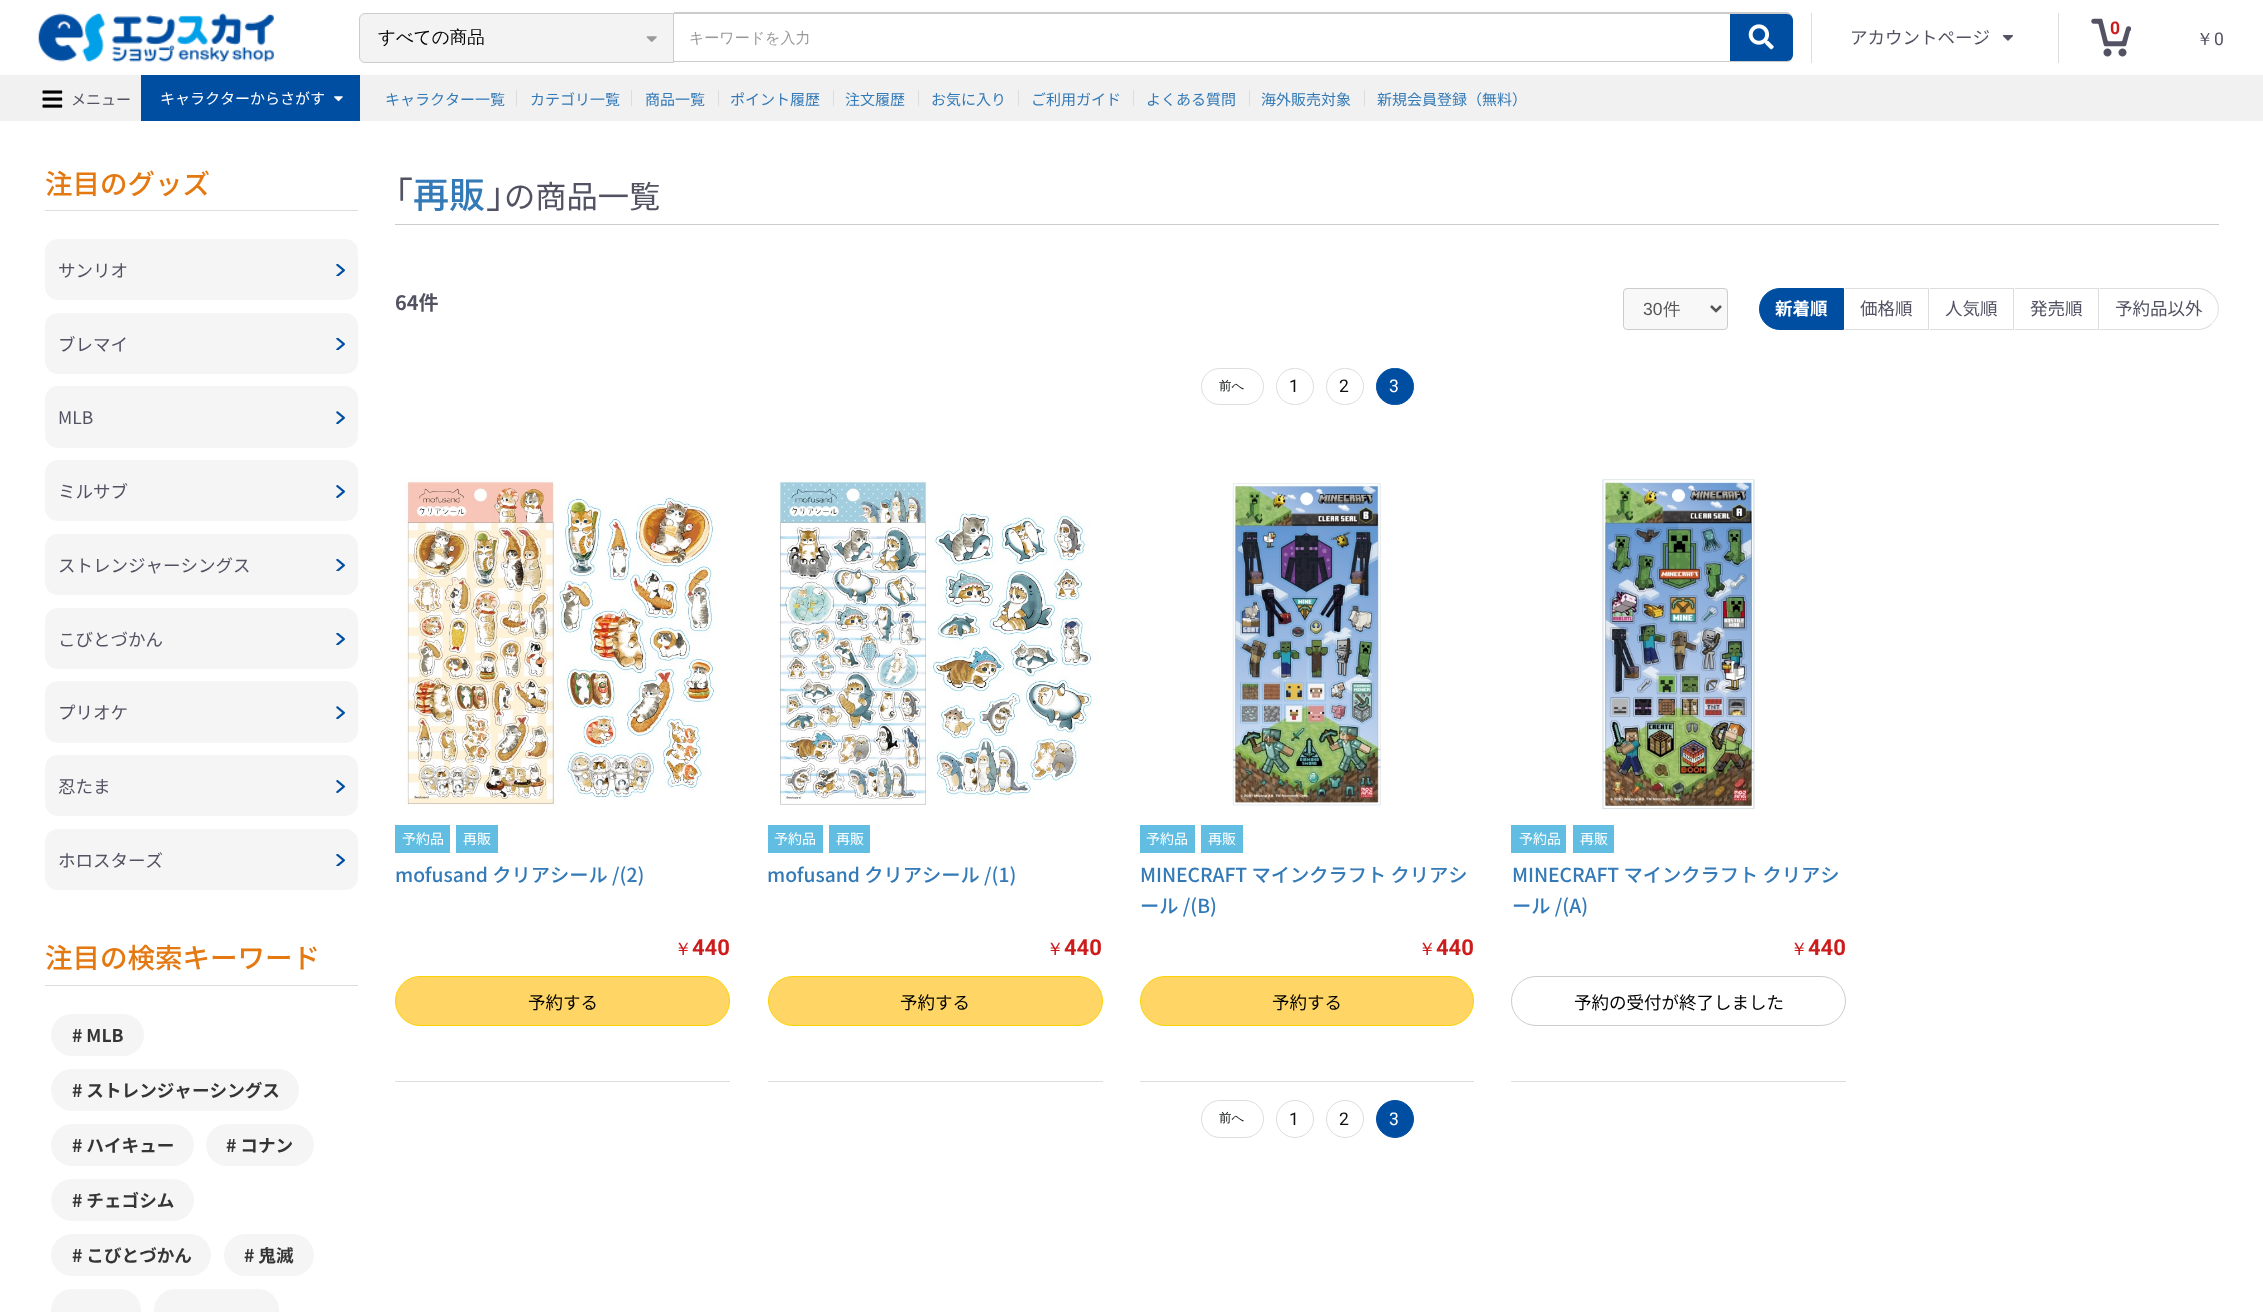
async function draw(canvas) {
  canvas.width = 2263
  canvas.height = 1312
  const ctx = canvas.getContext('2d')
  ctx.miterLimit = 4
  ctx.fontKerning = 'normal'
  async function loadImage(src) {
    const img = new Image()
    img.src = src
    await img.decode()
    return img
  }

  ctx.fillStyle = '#fff'
  ctx.fillRect(0, 0, 2263, 1312)
  ctx.drawImage(await loadImage('image0.png'), 38, 13, 236, 49)
  ctx.fillStyle = '#ddd'
  ctx.fillRect(1811, 13, 1, 50)
  ctx.fillStyle = '#f3f3f3'
  ctx.beginPath()
  ctx.roundRect(359.5, 13.5, 314, 49, [5.5, 0, 0, 5.5])
  ctx.fill()
  ctx.strokeStyle = '#ccc'
  ctx.stroke()
  ctx.font = '500 17.5px WenQuanYi Zen Hei'
  ctx.fillStyle = '#000'
  ctx.fillText('すべての商品', 378, 43)
  ctx.drawImage(await loadImage('image1.png'), 646, 36, 11, 6)
  ctx.fillStyle = '#ccc'
  ctx.beginPath()
  ctx.moveTo(674, 12)
  ctx.lineTo(1786, 12)
  ctx.bezierCurveTo(1790, 12, 1792, 15, 1792, 19)
  ctx.lineTo(1792, 56)
  ctx.bezierCurveTo(1792, 60, 1790, 62, 1786, 62)
  ctx.lineTo(674, 62)
  ctx.closePath()
  ctx.moveTo(674, 14)
  ctx.lineTo(1786, 14)
  ctx.bezierCurveTo(1789, 14, 1791, 16, 1791, 19)
  ctx.lineTo(1791, 56)
  ctx.bezierCurveTo(1791, 59, 1789, 61, 1786, 61)
  ctx.lineTo(674, 61)
  ctx.closePath()
  ctx.fill('evenodd')
  ctx.font = '500 15px WenQuanYi Zen Hei'
  ctx.fillStyle = '#999'
  ctx.fillText('キーワードを入力', 689, 43)
  ctx.fillStyle = '#004ea2'
  ctx.beginPath()
  ctx.roundRect(1730, 14, 63, 47, [0, 6, 6, 0])
  ctx.fill()
  ctx.drawImage(await loadImage('image2.png'), 1748, 24, 26, 26)
  ctx.font = '17.5px Noto Sans JP'
  ctx.fillStyle = '#525263'
  ctx.fillText('アカウントページ', 1850, 44)
  ctx.drawImage(await loadImage('image3.png'), 2002, 35, 11, 6)
  ctx.fillStyle = '#ddd'
  ctx.fillRect(2058, 13, 1, 50)
  ctx.drawImage(await loadImage('image4.png'), 2091, 18, 40, 39)
  ctx.font = 'bold 17.5px Roboto'
  ctx.fillStyle = '#cc1c1c'
  ctx.fillText('0', 2110, 34)
  ctx.font = '500 17.5px WenQuanYi Zen Hei'
  ctx.fillStyle = '#525263'
  ctx.fillText('￥', 2196, 45)
  ctx.font = '17.5px Roboto'
  ctx.fillText('0', 2214, 45)
  ctx.fillStyle = '#f1f1f1'
  ctx.fillRect(0, 75, 2263, 46)
  ctx.drawImage(await loadImage('image5.png'), 42, 90, 21, 18)
  ctx.font = '15px Noto Sans JP'
  ctx.fillStyle = '#525263'
  ctx.fillText('メニュー', 71, 105)
  ctx.fillStyle = '#004ea2'
  ctx.fillRect(141, 75, 219, 46)
  ctx.fillStyle = '#fff'
  ctx.fillText('キャラクターからさがす', 160, 104)
  ctx.drawImage(await loadImage('image6.png'), 334, 96, 9, 6)
  ctx.fillStyle = '#337ab7'
  ctx.fillText('キャラクター一覧', 385, 105)
  ctx.fillStyle = '#ddd'
  ctx.fillRect(516, 90, 1, 16)
  ctx.fillStyle = '#337ab7'
  ctx.fillText('カテゴリ一覧', 530, 105)
  ctx.fillStyle = '#ddd'
  ctx.fillRect(631, 90, 1, 16)
  ctx.fillStyle = '#337ab7'
  ctx.fillText('商品一覧', 645, 105)
  ctx.fillStyle = '#ddd'
  ctx.fillRect(718, 90, 1, 16)
  ctx.fillStyle = '#337ab7'
  ctx.fillText('ポイント履歴', 730, 105)
  ctx.fillStyle = '#ddd'
  ctx.fillRect(833, 90, 1, 16)
  ctx.fillStyle = '#337ab7'
  ctx.fillText('注文履歴', 845, 105)
  ctx.fillStyle = '#ddd'
  ctx.fillRect(918, 90, 1, 16)
  ctx.fillStyle = '#337ab7'
  ctx.fillText('お気に入り', 931, 105)
  ctx.fillStyle = '#ddd'
  ctx.fillRect(1018, 90, 1, 16)
  ctx.fillStyle = '#337ab7'
  ctx.fillText('ご利用ガイド', 1031, 105)
  ctx.fillStyle = '#ddd'
  ctx.fillRect(1133, 90, 1, 16)
  ctx.fillStyle = '#337ab7'
  ctx.fillText('よくある質問', 1146, 105)
  ctx.fillStyle = '#ddd'
  ctx.fillRect(1249, 90, 1, 16)
  ctx.fillStyle = '#337ab7'
  ctx.fillText('海外販売対象', 1261, 105)
  ctx.fillStyle = '#ddd'
  ctx.fillRect(1364, 90, 1, 16)
  ctx.fillStyle = '#337ab7'
  ctx.fillText('新規会員登録（無料）', 1377, 105)
  ctx.fillStyle = '#ddd'
  ctx.fillRect(45, 210, 313, 1)
  ctx.font = '500 27.5px Noto Sans JP'
  ctx.fillStyle = '#e47911'
  ctx.fillText('注目のグッズ', 45, 194)
  ctx.fillStyle = '#f5f5f5'
  ctx.beginPath()
  ctx.roundRect(45, 239, 313, 61, 13)
  ctx.fill()
  ctx.drawImage(await loadImage('image7.png'), 336, 264, 9, 12)
  ctx.font = '17.5px Noto Sans JP'
  ctx.fillStyle = '#525263'
  ctx.fillText('サンリオ', 58, 277)
  ctx.fillStyle = '#f5f5f5'
  ctx.beginPath()
  ctx.roundRect(45, 313, 313, 61, 13)
  ctx.fill()
  ctx.drawImage(await loadImage('image8.png'), 336, 338, 9, 12)
  ctx.fillStyle = '#525263'
  ctx.fillText('ブレマイ', 58, 351)
  ctx.fillStyle = '#f5f5f5'
  ctx.beginPath()
  ctx.roundRect(45, 386, 313, 62, 13)
  ctx.fill()
  ctx.drawImage(await loadImage('image9.png'), 336, 411, 9, 13)
  ctx.fillStyle = '#525263'
  ctx.fillText('MLB', 58, 424)
  ctx.fillStyle = '#f5f5f5'
  ctx.beginPath()
  ctx.roundRect(45, 460, 313, 61, 13)
  ctx.fill()
  ctx.drawImage(await loadImage('image10.png'), 336, 485, 9, 13)
  ctx.fillStyle = '#525263'
  ctx.fillText('ミルサブ', 58, 498)
  ctx.fillStyle = '#f5f5f5'
  ctx.beginPath()
  ctx.roundRect(45, 534, 313, 61, 13)
  ctx.fill()
  ctx.drawImage(await loadImage('image7.png'), 336, 559, 9, 12)
  ctx.fillStyle = '#525263'
  ctx.fillText('ストレンジャーシングス', 58, 572)
  ctx.fillStyle = '#f5f5f5'
  ctx.beginPath()
  ctx.roundRect(45, 608, 313, 61, 13)
  ctx.fill()
  ctx.drawImage(await loadImage('image8.png'), 336, 633, 9, 12)
  ctx.fillStyle = '#525263'
  ctx.fillText('こびとづかん', 58, 646)
  ctx.fillStyle = '#f5f5f5'
  ctx.beginPath()
  ctx.roundRect(45, 681, 313, 62, 13)
  ctx.fill()
  ctx.drawImage(await loadImage('image9.png'), 336, 706, 9, 13)
  ctx.fillStyle = '#525263'
  ctx.fillText('プリオケ', 58, 719)
  ctx.fillStyle = '#f5f5f5'
  ctx.beginPath()
  ctx.roundRect(45, 755, 313, 61, 13)
  ctx.fill()
  ctx.drawImage(await loadImage('image10.png'), 336, 780, 9, 13)
  ctx.fillStyle = '#525263'
  ctx.fillText('忍たま', 58, 793)
  ctx.fillStyle = '#f5f5f5'
  ctx.beginPath()
  ctx.roundRect(45, 829, 313, 61, 13)
  ctx.fill()
  ctx.drawImage(await loadImage('image7.png'), 336, 854, 9, 12)
  ctx.fillStyle = '#525263'
  ctx.fillText('ホロスターズ', 58, 867)
  ctx.fillStyle = '#ddd'
  ctx.fillRect(45, 985, 313, 1)
  ctx.font = '500 27.5px Noto Sans JP'
  ctx.fillStyle = '#e47911'
  ctx.fillText('注目の検索キーワード', 45, 968)
  ctx.fillStyle = '#f5f5f5'
  ctx.beginPath()
  ctx.roundRect(51, 1014, 93, 42, 21)
  ctx.fill()
  ctx.font = 'bold 17.6px Noto Sans JP'
  ctx.fillStyle = '#353535'
  ctx.fillText('# MLB', 72, 1042)
  ctx.fillStyle = '#f5f5f5'
  ctx.beginPath()
  ctx.roundRect(51, 1069, 248, 42, 21)
  ctx.fill()
  ctx.fillStyle = '#353535'
  ctx.fillText('# ストレンジャーシングス', 72, 1097)
  ctx.fillStyle = '#f5f5f5'
  ctx.beginPath()
  ctx.roundRect(51, 1124, 143, 42, 21)
  ctx.fill()
  ctx.fillStyle = '#353535'
  ctx.fillText('# ハイキュー', 72, 1152)
  ctx.fillStyle = '#f5f5f5'
  ctx.beginPath()
  ctx.roundRect(206, 1124, 108, 42, 21)
  ctx.fill()
  ctx.fillStyle = '#353535'
  ctx.fillText('# コナン', 226, 1152)
  ctx.fillStyle = '#f5f5f5'
  ctx.beginPath()
  ctx.roundRect(51, 1179, 143, 42, 21)
  ctx.fill()
  ctx.fillStyle = '#353535'
  ctx.fillText('# チェゴシム', 72, 1207)
  ctx.fillStyle = '#f5f5f5'
  ctx.beginPath()
  ctx.roundRect(51, 1234, 160, 42, 21)
  ctx.fill()
  ctx.fillStyle = '#353535'
  ctx.fillText('# こびとづかん', 72, 1262)
  ctx.fillStyle = '#f5f5f5'
  ctx.beginPath()
  ctx.roundRect(224, 1234, 90, 42, 21)
  ctx.fill()
  ctx.fillStyle = '#353535'
  ctx.fillText('# 鬼滅', 244, 1262)
  ctx.fillStyle = '#f5f5f5'
  ctx.beginPath()
  ctx.roundRect(51, 1289, 90, 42, 21)
  ctx.fill()
  ctx.beginPath()
  ctx.roundRect(154, 1289, 125, 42, 21)
  ctx.fill()
  ctx.fillStyle = '#ccc'
  ctx.fillRect(395, 224, 1824, 1)
  ctx.font = '36px Noto Sans JP'
  ctx.fillStyle = '#525263'
  ctx.fillText('「', 377, 208)
  ctx.font = '500 36px Noto Sans JP'
  ctx.fillStyle = '#337ab7'
  ctx.fillText('再販', 413, 208)
  ctx.font = '36px Noto Sans JP'
  ctx.fillStyle = '#525263'
  ctx.fillText('」', 486, 208)
  ctx.font = '31.25px Noto Sans JP'
  ctx.fillText('の商品一覧', 504, 208)
  ctx.font = 'bold 20px Noto Sans JP'
  ctx.fillText('64件', 395, 310)
  ctx.fillStyle = '#f8f8f8'
  ctx.beginPath()
  ctx.roundRect(1623.5, 288.5, 104, 41, 3.5)
  ctx.fill()
  ctx.stroke()
  ctx.beginPath()
  ctx.moveTo(1711, 306)
  ctx.lineTo(1716, 311)
  ctx.lineTo(1721, 306)
  ctx.strokeStyle = '#555'
  ctx.lineWidth = 2.5
  ctx.stroke()
  ctx.font = '17.5px Liberation Sans'
  ctx.fillStyle = '#555'
  ctx.fillText('30', 1643, 315)
  ctx.font = '500 17.5px WenQuanYi Zen Hei'
  ctx.fillText('件', 1663, 315)
  ctx.fillStyle = '#004ea2'
  ctx.beginPath()
  ctx.roundRect(1759.5, 288.5, 84, 41, [20.5, 0, 0, 20.5])
  ctx.fill()
  ctx.strokeStyle = '#004ea2'
  ctx.lineWidth = 1
  ctx.stroke()
  ctx.font = 'bold 17.5px Noto Sans JP'
  ctx.fillStyle = '#fff'
  ctx.fillText('新着順', 1775, 315)
  ctx.fillStyle = '#ddd'
  ctx.fillRect(1844, 288, 255, 1)
  ctx.fillRect(1928, 288, 1, 42)
  ctx.fillRect(1844, 329, 85, 1)
  ctx.fillStyle = '#fff'
  ctx.fillRect(1844, 288, 1, 42)
  ctx.font = '17.5px Noto Sans JP'
  ctx.fillStyle = '#525263'
  ctx.fillText('価格順', 1860, 315)
  ctx.fillStyle = '#ddd'
  ctx.fillRect(2013, 288, 1, 42)
  ctx.fillRect(1929, 329, 85, 1)
  ctx.fillStyle = '#fff'
  ctx.fillRect(1929, 288, 1, 42)
  ctx.fillStyle = '#525263'
  ctx.fillText('人気順', 1945, 315)
  ctx.fillStyle = '#ddd'
  ctx.fillRect(2098, 288, 1, 42)
  ctx.fillRect(2014, 329, 85, 1)
  ctx.fillStyle = '#fff'
  ctx.fillRect(2014, 288, 1, 42)
  ctx.fillStyle = '#525263'
  ctx.fillText('発売順', 2030, 315)
  ctx.fillStyle = '#ddd'
  ctx.beginPath()
  ctx.moveTo(2212, 294)
  ctx.bezierCurveTo(2209, 290, 2203, 288, 2198, 288)
  ctx.lineTo(2099, 288)
  ctx.lineTo(2100, 289)
  ctx.lineTo(2198, 289)
  ctx.bezierCurveTo(2203, 289, 2208, 291, 2212, 295)
  ctx.closePath()
  ctx.fill()
  ctx.beginPath()
  ctx.moveTo(2212.5, 294)
  ctx.bezierCurveTo(2221, 302, 2221, 315.5, 2212.5, 323.5)
  ctx.lineTo(2212, 323)
  ctx.bezierCurveTo(2220, 315.5, 2220, 302, 2211.5, 294.5)
  ctx.closePath()
  ctx.fill()
  ctx.beginPath()
  ctx.moveTo(2099, 330)
  ctx.lineTo(2198, 330)
  ctx.bezierCurveTo(2203, 330, 2209, 328, 2212, 324)
  ctx.lineTo(2212, 323)
  ctx.bezierCurveTo(2208, 327, 2203, 329, 2198, 329)
  ctx.lineTo(2100, 329)
  ctx.closePath()
  ctx.fill()
  ctx.fillStyle = '#fff'
  ctx.beginPath()
  ctx.moveTo(2099, 288)
  ctx.lineTo(2099, 330)
  ctx.lineTo(2100, 329)
  ctx.lineTo(2100, 289)
  ctx.closePath()
  ctx.fill()
  ctx.fillStyle = '#525263'
  ctx.fillText('予約品以外', 2115, 315)
  ctx.beginPath()
  ctx.roundRect(1201.5, 368.5, 62, 36, 18)
  ctx.strokeStyle = '#ddd'
  ctx.stroke()
  ctx.font = '500 12.5px WenQuanYi Zen Hei'
  ctx.fillStyle = '#0f1111'
  ctx.fillText('前へ', 1219, 390)
  ctx.beginPath()
  ctx.roundRect(1276.5, 368.5, 37, 36, 18)
  ctx.stroke()
  ctx.font = '17.5px Roboto'
  ctx.fillText('1', 1289, 392)
  ctx.beginPath()
  ctx.roundRect(1326.5, 368.5, 37, 36, 18)
  ctx.stroke()
  ctx.fillText('2', 1339, 392)
  ctx.fillStyle = '#004ea2'
  ctx.beginPath()
  ctx.roundRect(1376.5, 368.5, 37, 36, 18)
  ctx.fill()
  ctx.strokeStyle = '#004ea2'
  ctx.stroke()
  ctx.fillStyle = '#fff'
  ctx.fillText('3', 1389, 392)
  ctx.fillStyle = '#ddd'
  ctx.fillRect(395, 1081, 335, 1)
  ctx.drawImage(await loadImage('image11.png'), 404, 477, 313, 330)
  ctx.fillStyle = '#61bee2'
  ctx.fillRect(395, 825, 55, 28)
  ctx.font = '14px Noto Sans JP'
  ctx.fillStyle = '#fff'
  ctx.fillText('予約品', 402, 844)
  ctx.fillStyle = '#61bee2'
  ctx.fillRect(456, 825, 42, 28)
  ctx.fillStyle = '#fff'
  ctx.fillText('再販', 463, 844)
  ctx.font = '500 19.25px Noto Sans JP'
  ctx.fillStyle = '#337ab7'
  ctx.fillText('mofusand クリアシール /(2)', 395, 882)
  ctx.font = '100 18px Noto Sans'
  ctx.fillStyle = '#cc1c1c'
  ctx.fillText('￥', 674, 955)
  ctx.font = 'bold 22px Roboto'
  ctx.fillText('440', 692, 955)
  ctx.fillStyle = '#ffd665'
  ctx.beginPath()
  ctx.roundRect(395.5, 976.5, 334, 49, 24.5)
  ctx.fill()
  ctx.strokeStyle = '#fcd200'
  ctx.stroke()
  ctx.font = '17.5px Noto Sans JP'
  ctx.fillStyle = '#000'
  ctx.fillText('予約する', 528, 1009)
  ctx.fillStyle = '#ddd'
  ctx.fillRect(768, 1081, 335, 1)
  ctx.drawImage(await loadImage('image12.png'), 777, 479, 321, 326)
  ctx.fillStyle = '#61bee2'
  ctx.fillRect(768, 825, 55, 28)
  ctx.font = '14px Noto Sans JP'
  ctx.fillStyle = '#fff'
  ctx.fillText('予約品', 774, 844)
  ctx.fillStyle = '#61bee2'
  ctx.fillRect(829, 825, 41, 28)
  ctx.fillStyle = '#fff'
  ctx.fillText('再販', 836, 844)
  ctx.font = '500 19.25px Noto Sans JP'
  ctx.fillStyle = '#337ab7'
  ctx.fillText('mofusand クリアシール /(1)', 767, 882)
  ctx.font = '100 18px Noto Sans'
  ctx.fillStyle = '#cc1c1c'
  ctx.fillText('￥', 1046, 955)
  ctx.font = 'bold 22px Roboto'
  ctx.fillText('440', 1064, 955)
  ctx.fillStyle = '#ffd665'
  ctx.beginPath()
  ctx.roundRect(768.5, 976.5, 334, 49, 24.5)
  ctx.fill()
  ctx.stroke()
  ctx.font = '17.5px Noto Sans JP'
  ctx.fillStyle = '#000'
  ctx.fillText('予約する', 900, 1009)
  ctx.fillStyle = '#ddd'
  ctx.fillRect(1140, 1081, 334, 1)
  ctx.drawImage(await loadImage('image13.png'), 1232, 483, 149, 323)
  ctx.fillStyle = '#61bee2'
  ctx.fillRect(1140, 825, 55, 28)
  ctx.font = '14px Noto Sans JP'
  ctx.fillStyle = '#fff'
  ctx.fillText('予約品', 1146, 844)
  ctx.fillStyle = '#61bee2'
  ctx.fillRect(1201, 825, 42, 28)
  ctx.fillStyle = '#fff'
  ctx.fillText('再販', 1208, 844)
  ctx.font = '500 19.25px Noto Sans JP'
  ctx.fillStyle = '#337ab7'
  ctx.fillText('MINECRAFT マインクラフト クリアシ', 1140, 882)
  ctx.fillText('ール /(B)', 1140, 913)
  ctx.font = '100 18px Noto Sans'
  ctx.fillStyle = '#cc1c1c'
  ctx.fillText('￥', 1418, 955)
  ctx.font = 'bold 22px Roboto'
  ctx.fillText('440', 1436, 955)
  ctx.fillStyle = '#ffd665'
  ctx.beginPath()
  ctx.roundRect(1140.5, 976.5, 333, 49, 24.5)
  ctx.fill()
  ctx.stroke()
  ctx.font = '17.5px Noto Sans JP'
  ctx.fillStyle = '#000'
  ctx.fillText('予約する', 1272, 1009)
  ctx.fillStyle = '#ddd'
  ctx.fillRect(1511, 1081, 335, 1)
  ctx.drawImage(await loadImage('image14.png'), 1602, 479, 153, 331)
  ctx.fillStyle = '#61bee2'
  ctx.fillRect(1511, 825, 55, 28)
  ctx.font = '14px Noto Sans JP'
  ctx.fillStyle = '#fff'
  ctx.fillText('予約品', 1519, 844)
  ctx.fillStyle = '#61bee2'
  ctx.fillRect(1573, 825, 41, 28)
  ctx.fillStyle = '#fff'
  ctx.fillText('再販', 1580, 844)
  ctx.font = '500 19.25px Noto Sans JP'
  ctx.fillStyle = '#337ab7'
  ctx.fillText('MINECRAFT マインクラフト クリアシ', 1512, 882)
  ctx.fillText('ール /(A)', 1512, 913)
  ctx.font = '100 18px Noto Sans'
  ctx.fillStyle = '#cc1c1c'
  ctx.fillText('￥', 1790, 955)
  ctx.font = 'bold 22px Roboto'
  ctx.fillText('440', 1808, 955)
  ctx.beginPath()
  ctx.roundRect(1511.5, 976.5, 334, 49, 24.5)
  ctx.strokeStyle = '#ccc'
  ctx.stroke()
  ctx.font = '17.5px Noto Sans JP'
  ctx.fillStyle = '#000'
  ctx.fillText('予約の受付が終了しました', 1574, 1009)
  ctx.beginPath()
  ctx.roundRect(1201.5, 1100.5, 62, 37, 18.5)
  ctx.strokeStyle = '#ddd'
  ctx.stroke()
  ctx.font = '500 12.5px WenQuanYi Zen Hei'
  ctx.fillStyle = '#0f1111'
  ctx.fillText('前へ', 1219, 1122)
  ctx.beginPath()
  ctx.arc(1295, 1119, 18.5, 0, 2 * Math.PI)
  ctx.stroke()
  ctx.font = '17.5px Roboto'
  ctx.fillText('1', 1289, 1125)
  ctx.beginPath()
  ctx.arc(1345, 1119, 18.5, 0, 2 * Math.PI)
  ctx.stroke()
  ctx.fillText('2', 1339, 1125)
  ctx.fillStyle = '#004ea2'
  ctx.beginPath()
  ctx.arc(1395, 1119, 18.5, 0, 2 * Math.PI)
  ctx.fill()
  ctx.strokeStyle = '#004ea2'
  ctx.stroke()
  ctx.fillStyle = '#fff'
  ctx.fillText('3', 1389, 1125)
}

draw(document.querySelector('canvas'))
